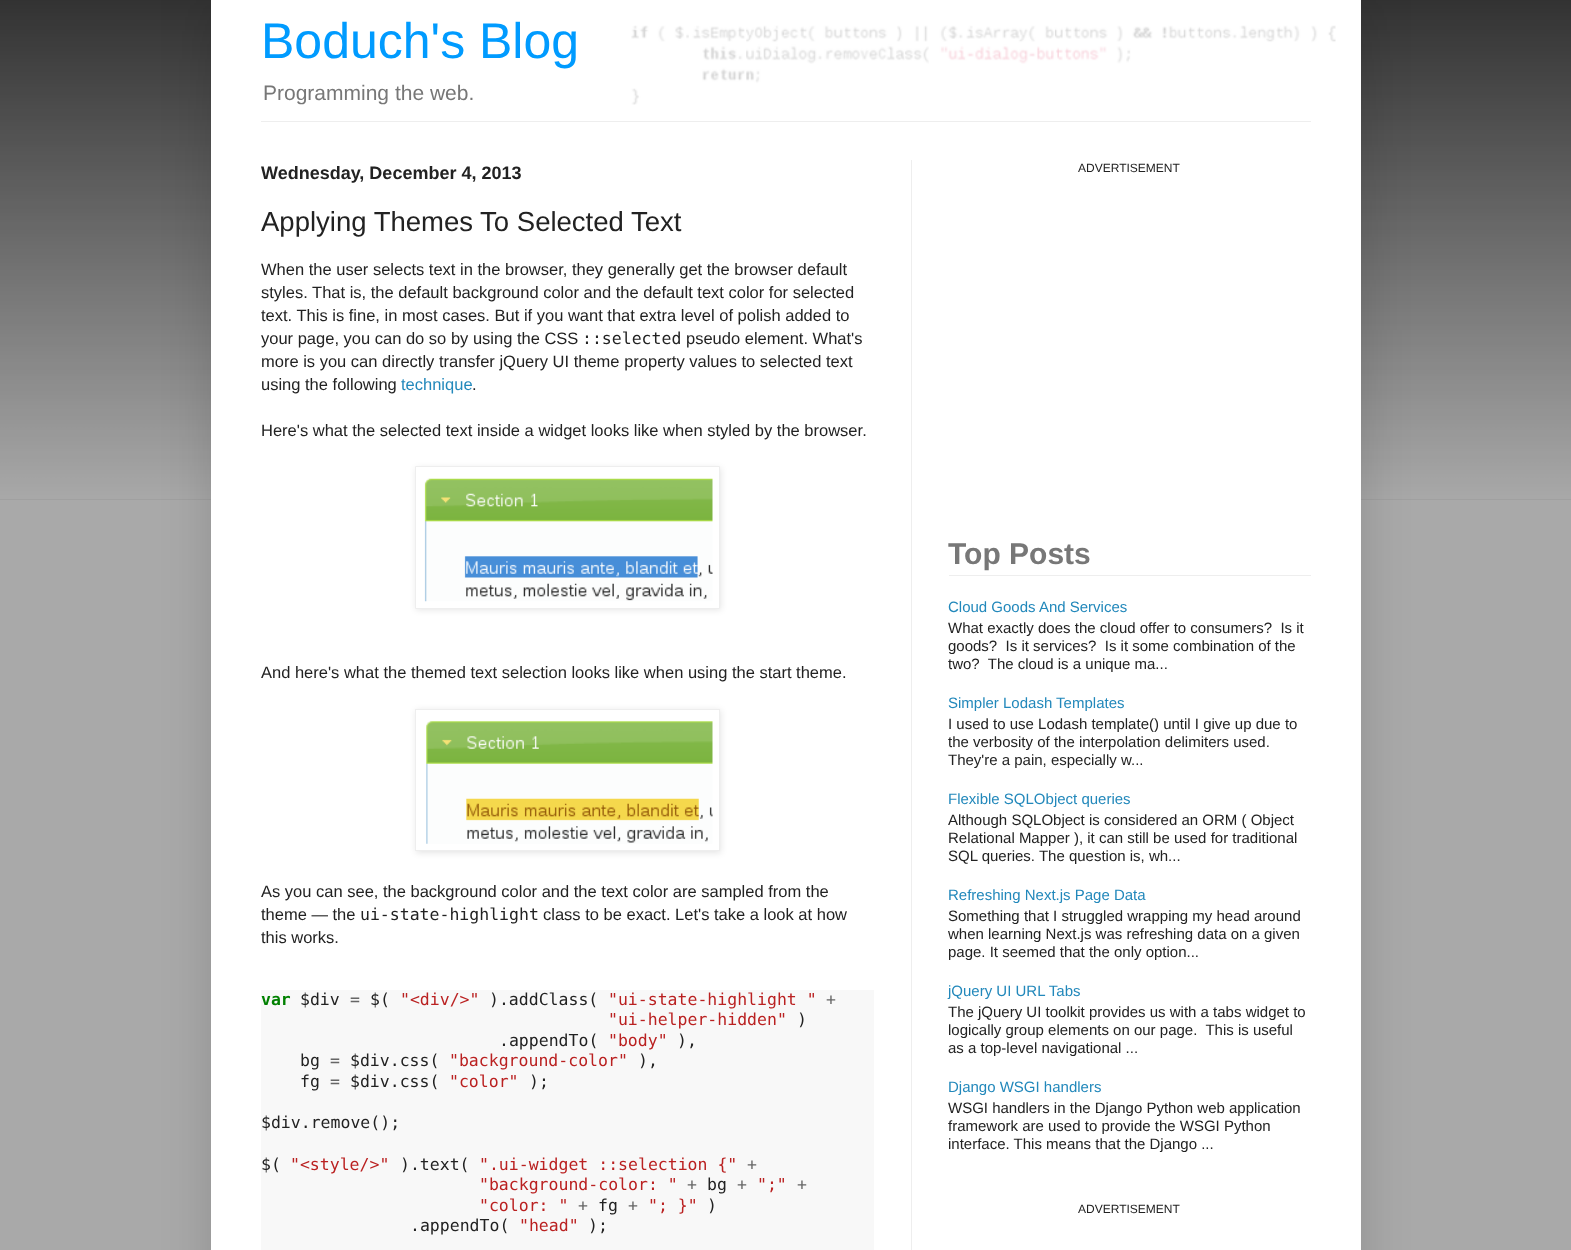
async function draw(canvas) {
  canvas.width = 1571
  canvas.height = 1250
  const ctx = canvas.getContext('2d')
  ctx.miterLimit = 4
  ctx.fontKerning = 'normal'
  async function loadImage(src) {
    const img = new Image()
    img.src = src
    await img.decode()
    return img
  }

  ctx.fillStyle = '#a9a9a9'
  ctx.fillRect(0, 0, 1571, 1250)
  ctx.fillStyle = '#282828'
  ctx.fillRect(0, 0, 1571, 500)
  ctx.drawImage(await loadImage('image0.png'), 0, 0, 1571, 500)
  ctx.fillStyle = '#00000026'
  ctx.filter = 'blur(25px)'
  ctx.beginPath()
  ctx.rect(211, 0, 1150, 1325)
  ctx.fill()
  ctx.filter = 'none'
  ctx.fillStyle = '#fff'
  ctx.fillRect(211, 0, 1150, 1250)
  ctx.drawImage(await loadImage('image1.png'), 631, 25, 705, 80)
  ctx.font = '50px Liberation Sans'
  ctx.fillStyle = '#009bff'
  ctx.fillText('Boduch\'s Blog', 261, 58)
  ctx.font = '21px Liberation Sans'
  ctx.fillStyle = '#777'
  ctx.fillText('Programming the web.', 263, 100)
  ctx.fillStyle = '#eee'
  ctx.fillRect(261, 121, 1050, 1)
  ctx.fillRect(911, 160, 1, 1090)
  ctx.font = 'bold 18px Liberation Sans'
  ctx.fillStyle = '#222'
  ctx.fillText('Wednesday, December 4, 2013', 261, 179)
  ctx.font = '27.5px Liberation Sans'
  ctx.fillText('Applying Themes To Selected Text', 261, 231)
  ctx.font = '16.5px Liberation Sans'
  ctx.fillText('When the user selects text in the browser, they generally get the browser default', 261, 275)
  ctx.fillText('styles. That is, the default background color and the default text color for selected', 261, 298)
  ctx.fillText('text. This is fine, in most cases. But if you want that extra level of polish added to', 261, 321)
  ctx.fillText('your page, you can do so by using the CSS', 261, 344)
  ctx.font = '16.5px DejaVu Sans Mono'
  ctx.fillText('::selected', 582, 344)
  ctx.font = '16.5px Liberation Sans'
  ctx.fillText('pseudo element. What\'s', 686, 344)
  ctx.fillText('more is you can directly transfer jQuery UI theme property values to selected text', 261, 367)
  ctx.fillText('using the following', 261, 390)
  ctx.fillStyle = '#28b'
  ctx.fillText('technique', 401, 390)
  ctx.fillStyle = '#222'
  ctx.fillText('.', 472, 390)
  ctx.fillText('Here\'s what the selected text inside a widget looks like when styled by the browser.', 261, 436)
  ctx.fillStyle = '#0000001a'
  ctx.filter = 'blur(3px)'
  ctx.beginPath()
  ctx.rect(416, 468, 305, 142)
  ctx.fill()
  ctx.filter = 'none'
  ctx.fillStyle = '#fff'
  ctx.beginPath()
  ctx.rect(415.5, 466.5, 304, 142)
  ctx.fill()
  ctx.strokeStyle = '#eee'
  ctx.stroke()
  ctx.drawImage(await loadImage('image2.png'), 424, 478, 289, 124)
  ctx.fillStyle = '#222'
  ctx.fillText('And here\'s what the themed text selection looks like when using the start theme.', 261, 678)
  ctx.save()
  ctx.beginPath()
  ctx.moveTo(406, 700)
  ctx.lineTo(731, 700)
  ctx.lineTo(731, 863)
  ctx.lineTo(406, 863)
  ctx.closePath()
  ctx.moveTo(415, 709)
  ctx.lineTo(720, 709)
  ctx.lineTo(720, 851)
  ctx.lineTo(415, 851)
  ctx.closePath()
  ctx.clip('evenodd')
  ctx.fillStyle = '#0000001a'
  ctx.filter = 'blur(3px)'
  ctx.beginPath()
  ctx.rect(416, 710, 305, 143)
  ctx.fill()
  ctx.filter = 'none'
  ctx.restore()
  ctx.strokeRect(415.5, 709.5, 304, 141)
  ctx.drawImage(await loadImage('image3.png'), 426, 721, 287, 123)
  ctx.fillText('As you can see, the background color and the text color are sampled from the', 261, 897)
  ctx.fillText('theme — the', 261, 920)
  ctx.font = '16.5px DejaVu Sans Mono'
  ctx.fillText('ui-state-highlight', 360, 920)
  ctx.font = '16.5px Liberation Sans'
  ctx.fillText('class to be exact. Let\'s take a look at how', 543, 920)
  ctx.fillText('this works.', 261, 943)
  ctx.fillStyle = '#f8f8f8'
  ctx.fillRect(261, 990, 613, 260)
  ctx.font = 'bold 16.5px DejaVu Sans Mono'
  ctx.fillStyle = '#008000'
  ctx.fillText('var', 261, 1005)
  ctx.font = '16.5px DejaVu Sans Mono'
  ctx.fillStyle = '#222'
  ctx.fillText('$div', 300, 1005)
  ctx.fillStyle = '#666'
  ctx.fillText('=', 350, 1005)
  ctx.fillStyle = '#222'
  ctx.fillText('$(', 370, 1005)
  ctx.fillStyle = '#ba2121'
  ctx.fillText('"<div/>"', 400, 1005)
  ctx.fillStyle = '#222'
  ctx.fillText(').addClass(', 489, 1005)
  ctx.fillStyle = '#ba2121'
  ctx.fillText('"ui-state-highlight "', 608, 1005)
  ctx.fillStyle = '#666'
  ctx.fillText('+', 826, 1005)
  ctx.fillStyle = '#ba2121'
  ctx.fillText('"ui-helper-hidden"', 608, 1025)
  ctx.fillStyle = '#222'
  ctx.fillText(')', 797, 1025)
  ctx.fillText('.appendTo(', 499, 1046)
  ctx.fillStyle = '#ba2121'
  ctx.fillText('"body"', 608, 1046)
  ctx.fillStyle = '#222'
  ctx.fillText('),', 677, 1046)
  ctx.fillText('bg', 300, 1066)
  ctx.fillStyle = '#666'
  ctx.fillText('=', 330, 1066)
  ctx.fillStyle = '#222'
  ctx.fillText('$div.css(', 350, 1066)
  ctx.fillStyle = '#ba2121'
  ctx.fillText('"background-color"', 449, 1066)
  ctx.fillStyle = '#222'
  ctx.fillText('),', 638, 1066)
  ctx.fillText('fg', 300, 1087)
  ctx.fillStyle = '#666'
  ctx.fillText('=', 330, 1087)
  ctx.fillStyle = '#222'
  ctx.fillText('$div.css(', 350, 1087)
  ctx.fillStyle = '#ba2121'
  ctx.fillText('"color"', 449, 1087)
  ctx.fillStyle = '#222'
  ctx.fillText(');', 529, 1087)
  ctx.fillText('$div.remove();', 261, 1128)
  ctx.fillText('$(', 261, 1170)
  ctx.fillStyle = '#ba2121'
  ctx.fillText('"<style/>"', 290, 1170)
  ctx.fillStyle = '#222'
  ctx.fillText(').text(', 400, 1170)
  ctx.fillStyle = '#ba2121'
  ctx.fillText('".ui-widget ::selection {"', 479, 1170)
  ctx.fillStyle = '#666'
  ctx.fillText('+', 747, 1170)
  ctx.fillStyle = '#ba2121'
  ctx.fillText('"background-color: "', 479, 1190)
  ctx.fillStyle = '#666'
  ctx.fillText('+', 687, 1190)
  ctx.fillStyle = '#222'
  ctx.fillText('bg', 707, 1190)
  ctx.fillStyle = '#666'
  ctx.fillText('+', 737, 1190)
  ctx.fillStyle = '#ba2121'
  ctx.fillText('";"', 757, 1190)
  ctx.fillStyle = '#666'
  ctx.fillText('+', 797, 1190)
  ctx.fillStyle = '#ba2121'
  ctx.fillText('"color: "', 479, 1211)
  ctx.fillStyle = '#666'
  ctx.fillText('+', 578, 1211)
  ctx.fillStyle = '#222'
  ctx.fillText('fg', 598, 1211)
  ctx.fillStyle = '#666'
  ctx.fillText('+', 628, 1211)
  ctx.fillStyle = '#ba2121'
  ctx.fillText('"; }"', 648, 1211)
  ctx.fillStyle = '#222'
  ctx.fillText(')', 707, 1211)
  ctx.fillText('.appendTo(', 410, 1231)
  ctx.fillStyle = '#ba2121'
  ctx.fillText('"head"', 519, 1231)
  ctx.fillStyle = '#222'
  ctx.fillText(');', 588, 1231)
  ctx.font = '12px Liberation Sans'
  ctx.fillText('ADVERTISEMENT', 1078, 172)
  ctx.fillStyle = '#eee'
  ctx.fillRect(949, 575, 362, 1)
  ctx.font = 'bold 30px Liberation Sans'
  ctx.fillStyle = '#777'
  ctx.fillText('Top Posts', 948, 564)
  ctx.font = '15px Liberation Sans'
  ctx.fillStyle = '#28b'
  ctx.fillText('Cloud Goods And Services', 948, 612)
  ctx.fillStyle = '#222'
  ctx.fillText('What exactly does the cloud offer to consumers?  Is it', 948, 633)
  ctx.fillText('goods?  Is it services?  Is it some combination of the', 948, 651)
  ctx.fillText('two?  The cloud is a unique ma...', 948, 669)
  ctx.fillStyle = '#28b'
  ctx.fillText('Simpler Lodash Templates', 948, 708)
  ctx.fillStyle = '#222'
  ctx.fillText('I used to use Lodash template() until I give up due to', 948, 729)
  ctx.fillText('the verbosity of the interpolation delimiters used.', 948, 747)
  ctx.fillText('They\'re a pain, especially w...', 948, 765)
  ctx.fillStyle = '#28b'
  ctx.fillText('Flexible SQLObject queries', 948, 804)
  ctx.fillStyle = '#222'
  ctx.fillText('Although SQLObject is considered an ORM ( Object', 948, 825)
  ctx.fillText('Relational Mapper ), it can still be used for traditional', 948, 843)
  ctx.fillText('SQL queries. The question is, wh...', 948, 861)
  ctx.fillStyle = '#28b'
  ctx.fillText('Refreshing Next.js Page Data', 948, 900)
  ctx.fillStyle = '#222'
  ctx.fillText('Something that I struggled wrapping my head around', 948, 921)
  ctx.fillText('when learning Next.js was refreshing data on a given', 948, 939)
  ctx.fillText('page. It seemed that the only option...', 948, 957)
  ctx.fillStyle = '#28b'
  ctx.fillText('jQuery UI URL Tabs', 948, 996)
  ctx.fillStyle = '#222'
  ctx.fillText('The jQuery UI toolkit provides us with a tabs widget to', 948, 1017)
  ctx.fillText('logically group elements on our page.  This is useful', 948, 1035)
  ctx.fillText('as a top-level navigational ...', 948, 1053)
  ctx.fillStyle = '#28b'
  ctx.fillText('Django WSGI handlers', 948, 1092)
  ctx.fillStyle = '#222'
  ctx.fillText('WSGI handlers in the Django Python web application', 948, 1113)
  ctx.fillText('framework are used to provide the WSGI Python', 948, 1131)
  ctx.fillText('interface. This means that the Django ...', 948, 1149)
  ctx.font = '12px Liberation Sans'
  ctx.fillText('ADVERTISEMENT', 1078, 1213)
}

draw(document.querySelector('canvas'))
